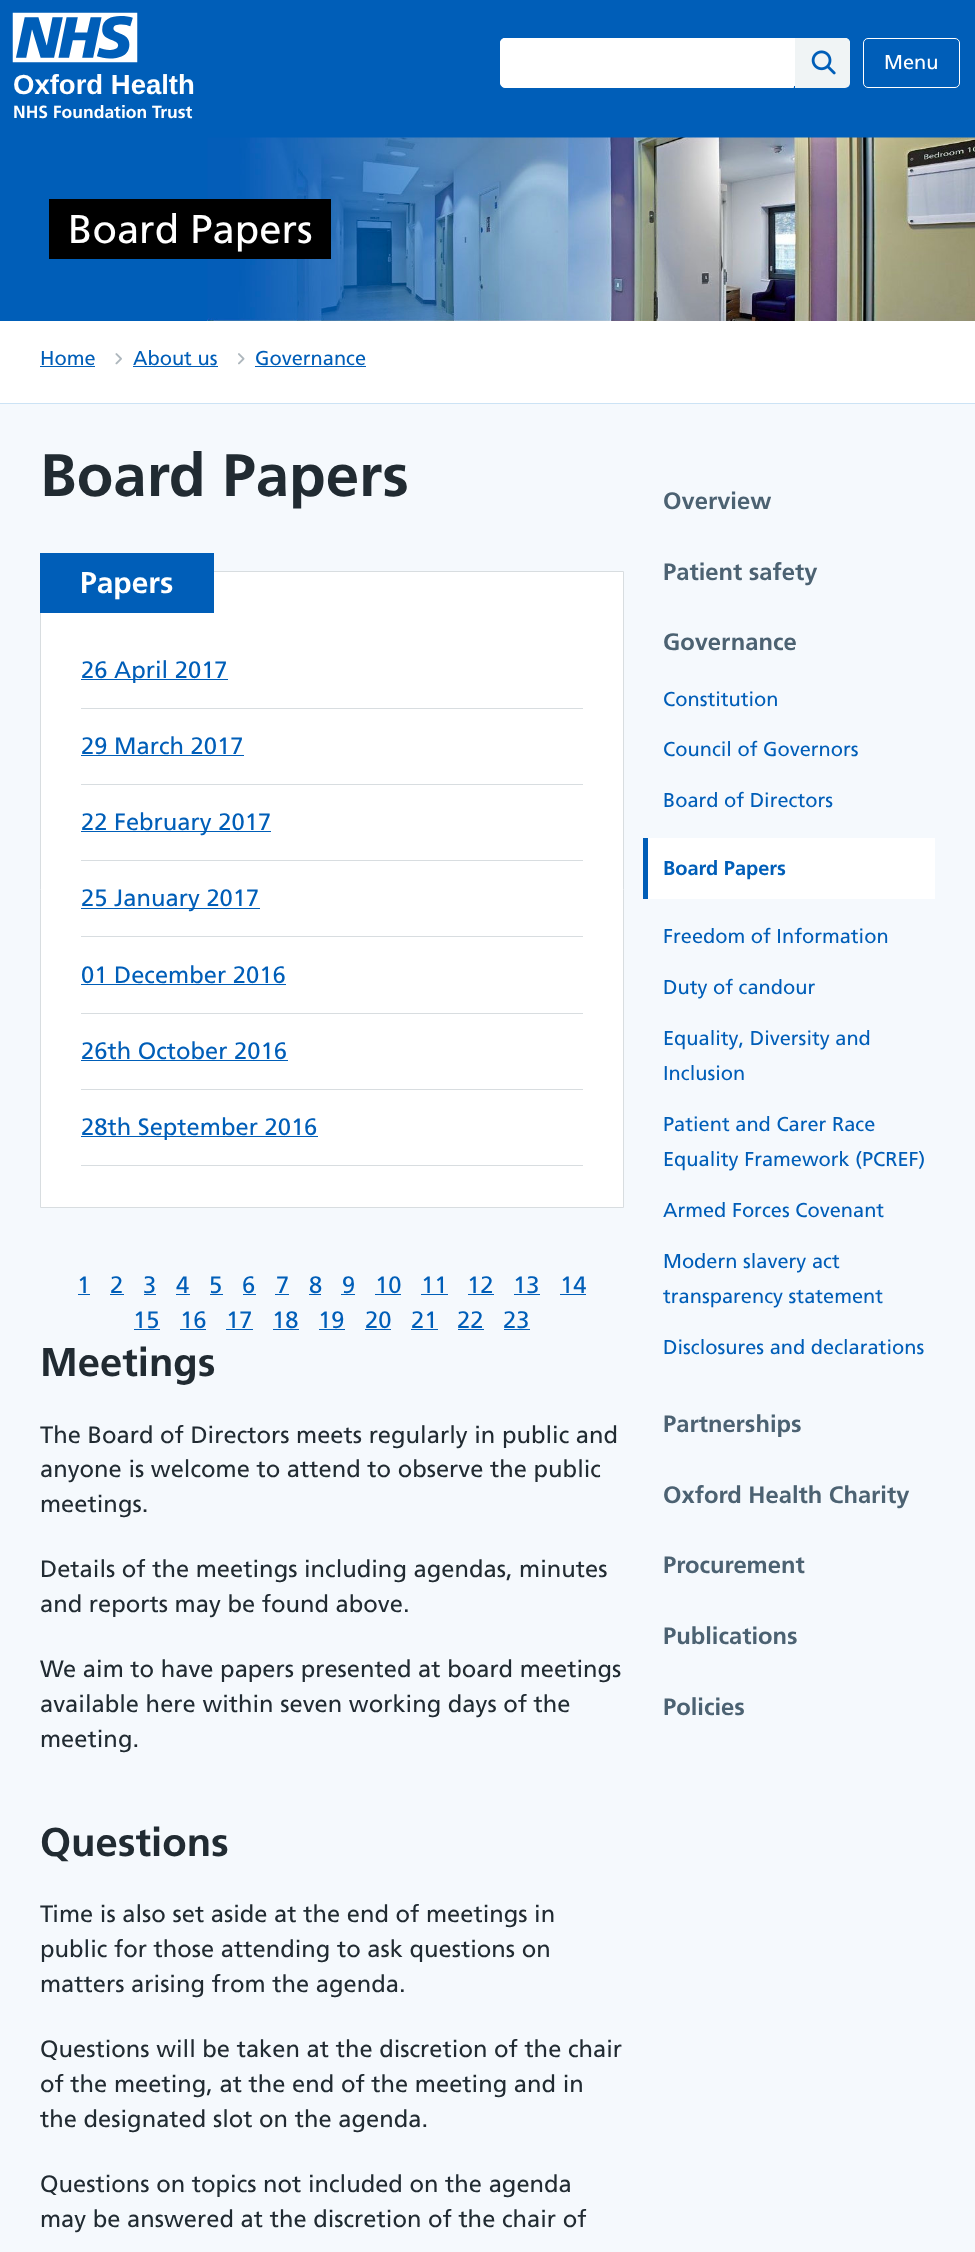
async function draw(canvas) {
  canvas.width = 975
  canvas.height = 2252
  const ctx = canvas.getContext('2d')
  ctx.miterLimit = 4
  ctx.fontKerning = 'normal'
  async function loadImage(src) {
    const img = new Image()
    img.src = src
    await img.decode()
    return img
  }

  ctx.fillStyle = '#f5f9fd'
  ctx.fillRect(0, 0, 975, 2252)
  ctx.fillStyle = '#005eb8'
  ctx.fillRect(0, 0, 975, 138)
  ctx.fillStyle = '#fff'
  ctx.beginPath()
  ctx.roundRect(500, 38, 350, 48, 5)
  ctx.fill()
  ctx.beginPath()
  ctx.roundRect(500.5, 38.5, 293, 49, [4.5, 0, 0, 4.5])
  ctx.fill()
  ctx.strokeStyle = '#fff'
  ctx.stroke()
  ctx.fillStyle = '#f0f4f5'
  ctx.beginPath()
  ctx.roundRect(795, 38, 55, 50, [0, 5, 5, 0])
  ctx.fill()
  ctx.drawImage(await loadImage('image0.png'), 811, 50, 25, 25)
  ctx.beginPath()
  ctx.roundRect(863.5, 38.5, 96, 49, 4.5)
  ctx.stroke()
  ctx.font = '20px Frutiger'
  ctx.fillStyle = '#fff'
  ctx.fillText('Menu', 884, 69)
  ctx.drawImage(await loadImage('image1.png'), 12, 12, 126, 51)
  ctx.font = 'bold 27.5px Liberation Sans'
  ctx.fillText('Oxford Health', 13, 94)
  ctx.font = 'bold 17.5px Frutiger'
  ctx.fillText('NHS Foundation Trust', 13, 118)
  ctx.fillStyle = '#005eb8'
  ctx.fillRect(0, 138, 208, 183)
  ctx.drawImage(await loadImage('image2.png'), 207, 137, 768, 184)
  ctx.fillStyle = '#000'
  ctx.fillRect(49, 199, 282, 60)
  ctx.font = '40px Frutiger'
  ctx.fillStyle = '#fff'
  ctx.fillText('Board Papers', 68, 243)
  ctx.fillRect(0, 321, 975, 82)
  ctx.fillStyle = '#cce3f5'
  ctx.fillRect(0, 403, 975, 1)
  ctx.font = '20px Frutiger'
  ctx.fillStyle = '#005eb8'
  ctx.fillText('Home', 40, 365)
  ctx.fillRect(40, 366, 55, 1)
  ctx.drawImage(await loadImage('image3.png'), 115, 353, 7, 12)
  ctx.fillText('About us', 133, 365)
  ctx.fillRect(133, 366, 85, 1)
  ctx.drawImage(await loadImage('image4.png'), 238, 353, 7, 12)
  ctx.fillText('Governance', 255, 365)
  ctx.fillRect(255, 366, 111, 1)
  ctx.font = 'bold 60px Frutiger'
  ctx.fillStyle = '#212b32'
  ctx.fillText('Board Papers', 40, 496)
  ctx.fillStyle = '#fff'
  ctx.beginPath()
  ctx.rect(40.5, 571.5, 583, 636)
  ctx.fill()
  ctx.strokeStyle = '#d8dde0'
  ctx.stroke()
  ctx.fillStyle = '#005eb8'
  ctx.fillRect(40, 553, 174, 60)
  ctx.font = 'bold 30px Frutiger'
  ctx.fillStyle = '#fff'
  ctx.fillText('Papers', 80, 593)
  ctx.fillStyle = '#d8dde0'
  ctx.fillRect(81, 708, 502, 1)
  ctx.fillStyle = '#005eb8'
  ctx.fillRect(81, 679, 147, 1)
  ctx.font = '23.75px Frutiger'
  ctx.fillText('26 April 2017', 81, 678)
  ctx.fillStyle = '#d8dde0'
  ctx.fillRect(81, 784, 502, 1)
  ctx.fillStyle = '#005eb8'
  ctx.fillText('29 March 2017', 81, 754)
  ctx.fillRect(81, 755, 163, 1)
  ctx.fillStyle = '#d8dde0'
  ctx.fillRect(81, 860, 502, 1)
  ctx.fillStyle = '#005eb8'
  ctx.fillRect(81, 831, 190, 1)
  ctx.fillText('22 February 2017', 81, 830)
  ctx.fillStyle = '#d8dde0'
  ctx.fillRect(81, 936, 502, 1)
  ctx.fillStyle = '#005eb8'
  ctx.fillRect(81, 908, 179, 1)
  ctx.fillText('25 January 2017', 81, 906)
  ctx.fillStyle = '#d8dde0'
  ctx.fillRect(81, 1013, 502, 1)
  ctx.fillStyle = '#005eb8'
  ctx.fillText('01 December 2016', 81, 983)
  ctx.fillRect(81, 984, 205, 1)
  ctx.fillStyle = '#d8dde0'
  ctx.fillRect(81, 1089, 502, 1)
  ctx.fillStyle = '#005eb8'
  ctx.fillText('26th October 2016', 81, 1059)
  ctx.fillRect(81, 1060, 207, 1)
  ctx.fillStyle = '#d8dde0'
  ctx.fillRect(81, 1165, 502, 1)
  ctx.fillStyle = '#005eb8'
  ctx.fillRect(81, 1136, 237, 1)
  ctx.fillText('28th September 2016', 81, 1135)
  ctx.fillText('1', 77, 1293)
  ctx.fillRect(78, 1294, 12, 1)
  ctx.fillText('2', 110, 1293)
  ctx.fillRect(110, 1294, 14, 1)
  ctx.fillText('3', 143, 1293)
  ctx.fillRect(144, 1294, 12, 1)
  ctx.fillText('4', 176, 1293)
  ctx.fillRect(176, 1294, 14, 1)
  ctx.fillText('5', 209, 1293)
  ctx.fillRect(210, 1294, 13, 1)
  ctx.fillText('6', 242, 1293)
  ctx.fillRect(243, 1294, 13, 1)
  ctx.fillText('7', 276, 1293)
  ctx.fillRect(275, 1294, 14, 1)
  ctx.fillText('8', 309, 1293)
  ctx.fillRect(309, 1294, 12, 1)
  ctx.fillText('9', 342, 1293)
  ctx.fillRect(341, 1294, 14, 1)
  ctx.fillText('10', 375, 1293)
  ctx.fillRect(375, 1294, 26, 1)
  ctx.fillText('11', 421, 1293)
  ctx.fillRect(421, 1294, 27, 1)
  ctx.fillText('12', 467, 1293)
  ctx.fillRect(468, 1294, 26, 1)
  ctx.fillText('13', 513, 1293)
  ctx.fillRect(514, 1294, 26, 1)
  ctx.fillText('14', 560, 1293)
  ctx.fillRect(560, 1294, 26, 1)
  ctx.fillText('15', 133, 1328)
  ctx.fillRect(134, 1329, 26, 1)
  ctx.fillText('16', 180, 1328)
  ctx.fillRect(180, 1329, 26, 1)
  ctx.fillText('17', 226, 1328)
  ctx.fillRect(226, 1329, 27, 1)
  ctx.fillText('18', 272, 1328)
  ctx.fillRect(273, 1329, 26, 1)
  ctx.fillText('19', 318, 1328)
  ctx.fillRect(319, 1329, 26, 1)
  ctx.fillText('20', 365, 1328)
  ctx.fillRect(365, 1329, 26, 1)
  ctx.fillText('21', 411, 1328)
  ctx.fillRect(411, 1329, 27, 1)
  ctx.fillText('22', 457, 1328)
  ctx.fillRect(458, 1329, 26, 1)
  ctx.fillText('23', 503, 1328)
  ctx.fillRect(504, 1329, 26, 1)
  ctx.font = 'bold 40px Frutiger'
  ctx.fillStyle = '#212b32'
  ctx.fillText('Meetings', 40, 1376)
  ctx.font = '23.75px Frutiger'
  ctx.fillText('The Board of Directors meets regularly in public and', 40, 1443)
  ctx.fillText('anyone is welcome to attend to observe the public', 40, 1477)
  ctx.fillText('meetings.', 40, 1512)
  ctx.fillText('Details of the meetings including agendas, minutes', 40, 1577)
  ctx.fillText('and reports may be found above.', 40, 1612)
  ctx.fillText('We aim to have papers presented at board meetings', 40, 1677)
  ctx.fillText('available here within seven working days of the', 40, 1712)
  ctx.fillText('meeting.', 40, 1747)
  ctx.font = 'bold 40px Frutiger'
  ctx.fillText('Questions', 40, 1856)
  ctx.font = '23.75px Frutiger'
  ctx.fillText('Time is also set aside at the end of meetings in', 40, 1922)
  ctx.fillText('public for those attending to ask questions on', 40, 1957)
  ctx.fillText('matters arising from the agenda.', 40, 1992)
  ctx.fillText('Questions will be taken at the discretion of the chair', 40, 2057)
  ctx.fillText('of the meeting, at the end of the meeting and in', 40, 2092)
  ctx.fillText('the designated slot on the agenda.', 40, 2127)
  ctx.fillText('Questions on topics not included on the agenda', 40, 2192)
  ctx.fillText('may be answered at the discretion of the chair of', 40, 2227)
  ctx.font = 'bold 23.75px Frutiger'
  ctx.fillStyle = '#4c6272'
  ctx.fillText('Overview', 663, 509)
  ctx.fillText('Patient safety', 663, 580)
  ctx.fillText('Governance', 663, 650)
  ctx.font = '20px Frutiger'
  ctx.fillStyle = '#005eb8'
  ctx.fillText('Constitution', 663, 706)
  ctx.fillText('Council of Governors', 663, 756)
  ctx.fillText('Board of Directors', 663, 807)
  ctx.fillStyle = '#fff'
  ctx.fillRect(648, 838, 287, 61)
  ctx.fillStyle = '#005eb8'
  ctx.fillRect(643, 838, 5, 61)
  ctx.font = 'bold 20px Frutiger'
  ctx.fillText('Board Papers', 663, 875)
  ctx.font = '20px Frutiger'
  ctx.fillText('Freedom of Information', 663, 943)
  ctx.fillText('Duty of candour', 663, 994)
  ctx.fillText('Equality, Diversity and', 663, 1045)
  ctx.fillText('Inclusion', 663, 1080)
  ctx.fillText('Patient and Carer Race', 663, 1131)
  ctx.fillText('Equality Framework (PCREF)', 663, 1166)
  ctx.fillText('Armed Forces Covenant', 663, 1217)
  ctx.fillText('Modern slavery act', 663, 1268)
  ctx.fillText('transparency statement', 663, 1303)
  ctx.fillText('Disclosures and declarations', 663, 1354)
  ctx.font = 'bold 23.75px Frutiger'
  ctx.fillStyle = '#4c6272'
  ctx.fillText('Partnerships', 663, 1432)
  ctx.fillText('Oxford Health Charity', 663, 1503)
  ctx.fillText('Procurement', 663, 1573)
  ctx.fillText('Publications', 663, 1644)
  ctx.fillText('Policies', 663, 1715)
}

draw(document.querySelector('canvas'))
